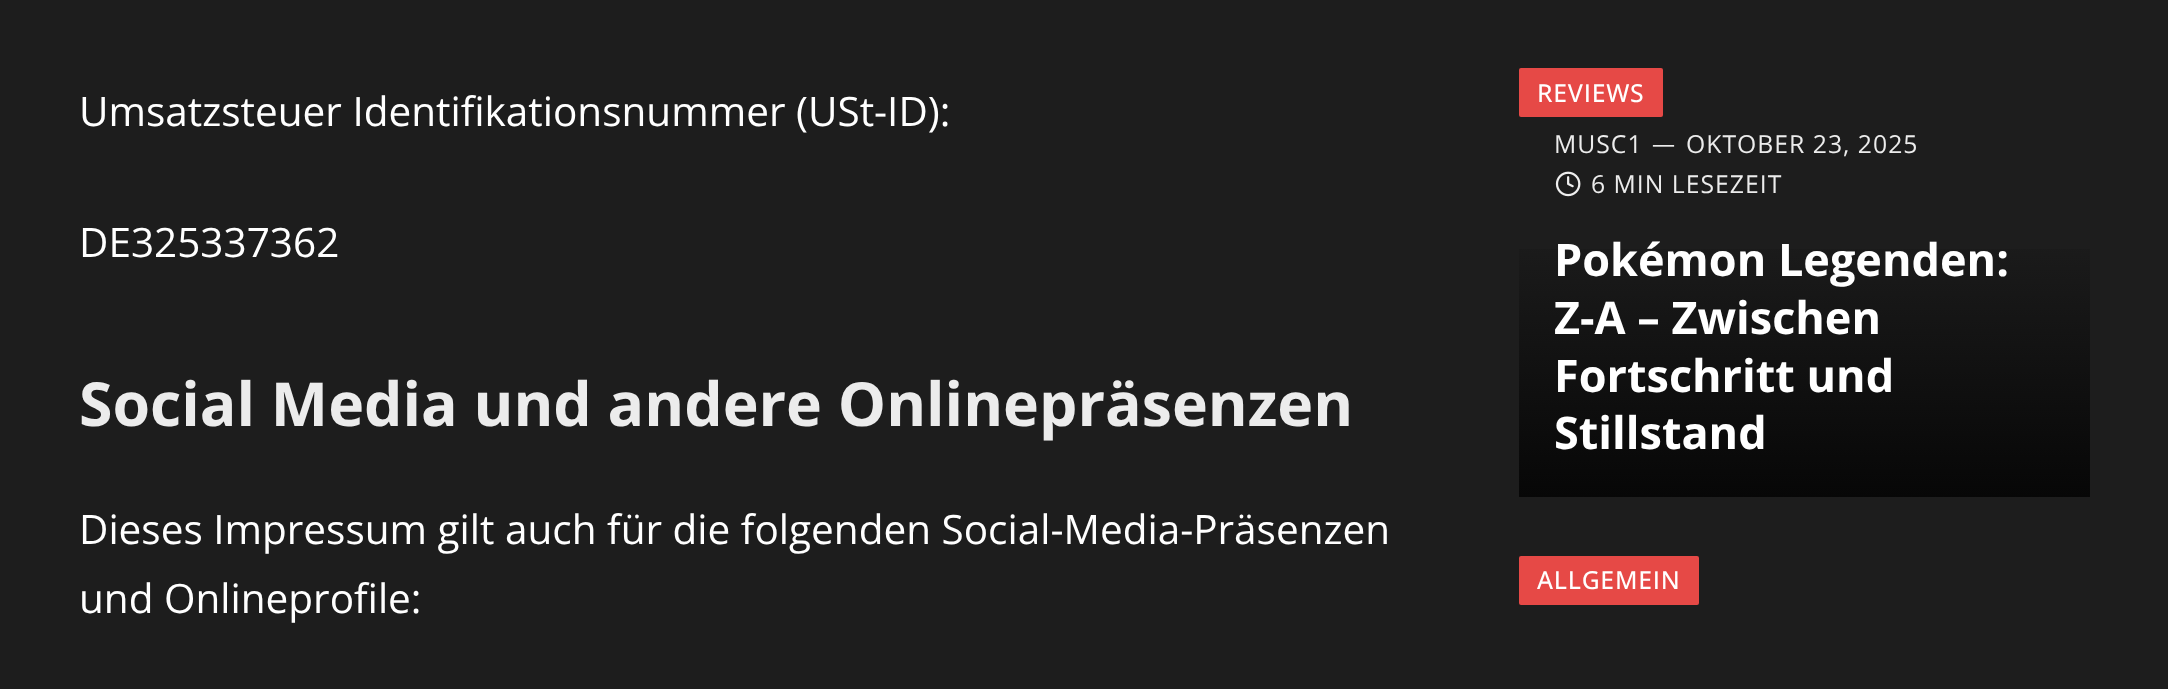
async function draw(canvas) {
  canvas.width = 2168
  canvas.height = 689
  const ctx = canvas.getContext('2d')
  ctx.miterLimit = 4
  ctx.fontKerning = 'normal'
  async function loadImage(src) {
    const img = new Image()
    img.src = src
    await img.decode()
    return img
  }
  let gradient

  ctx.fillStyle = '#1d1d1d'
  ctx.fillRect(0, 0, 2168, 689)
  ctx.font = '40.5px Open Sans'
  ctx.fillStyle = '#fff'
  ctx.fillText('Umsatzsteuer Identifikationsnummer (USt-ID):', 79, 126)
  ctx.fillText('DE325337362', 79, 257)
  ctx.font = 'bold 60.75px Open Sans'
  ctx.fillStyle = '#ececec'
  ctx.fillText('Social Media und andere Onlinepräsenzen', 79, 426)
  ctx.font = '40.5px Open Sans'
  ctx.fillStyle = '#fff'
  ctx.fillText('Dieses Impressum gilt auch für die folgenden Social-Media-Präsenzen', 79, 544)
  ctx.fillText('und Onlineprofile:', 79, 613)
  ctx.fillStyle = '#e64946'
  ctx.beginPath()
  ctx.roundRect(1519, 68, 144, 49, 2)
  ctx.fill()
  ctx.letterSpacing = '0.75px'
  ctx.font = '500 24.75px Open Sans'
  ctx.fillStyle = '#fff'
  ctx.fillText('REVIEWS', 1537, 102)
  ctx.letterSpacing = '1px'
  ctx.font = '24.75px Open Sans'
  ctx.fillStyle = '#ececec'
  ctx.fillText('MUSC1', 1554, 153)
  ctx.font = '23px Open Sans'
  ctx.fillText('—', 1652, 152)
  ctx.font = '24.75px Open Sans'
  ctx.fillText('OKTOBER 23, 2025', 1686, 153)
  ctx.drawImage(await loadImage('image0.png'), 1555, 171, 26, 26)
  ctx.fillText('6 MIN LESEZEIT', 1591, 193)
  gradient = ctx.createLinearGradient(1805, 67, 1805, 497)
  gradient.addColorStop(0.35, '#1d1d1d')
  gradient.addColorStop(1, '#070707')
  ctx.fillStyle = gradient
  ctx.fillRect(1519, 249, 571, 248)
  ctx.letterSpacing = '0px'
  ctx.font = 'bold 45px Open Sans'
  ctx.fillStyle = '#fff'
  ctx.fillText('Pokémon Legenden:', 1554, 276)
  ctx.fillText('Z-A – Zwischen', 1554, 334)
  ctx.fillText('Fortschritt und', 1554, 392)
  ctx.fillText('Stillstand', 1554, 449)
  ctx.fillStyle = '#e64946'
  ctx.beginPath()
  ctx.roundRect(1519, 556, 180, 49, 2)
  ctx.fill()
  ctx.letterSpacing = '0.75px'
  ctx.font = '500 24.75px Open Sans'
  ctx.fillStyle = '#fff'
  ctx.fillText('ALLGEMEIN', 1537, 589)
}

draw(document.querySelector('canvas'))
